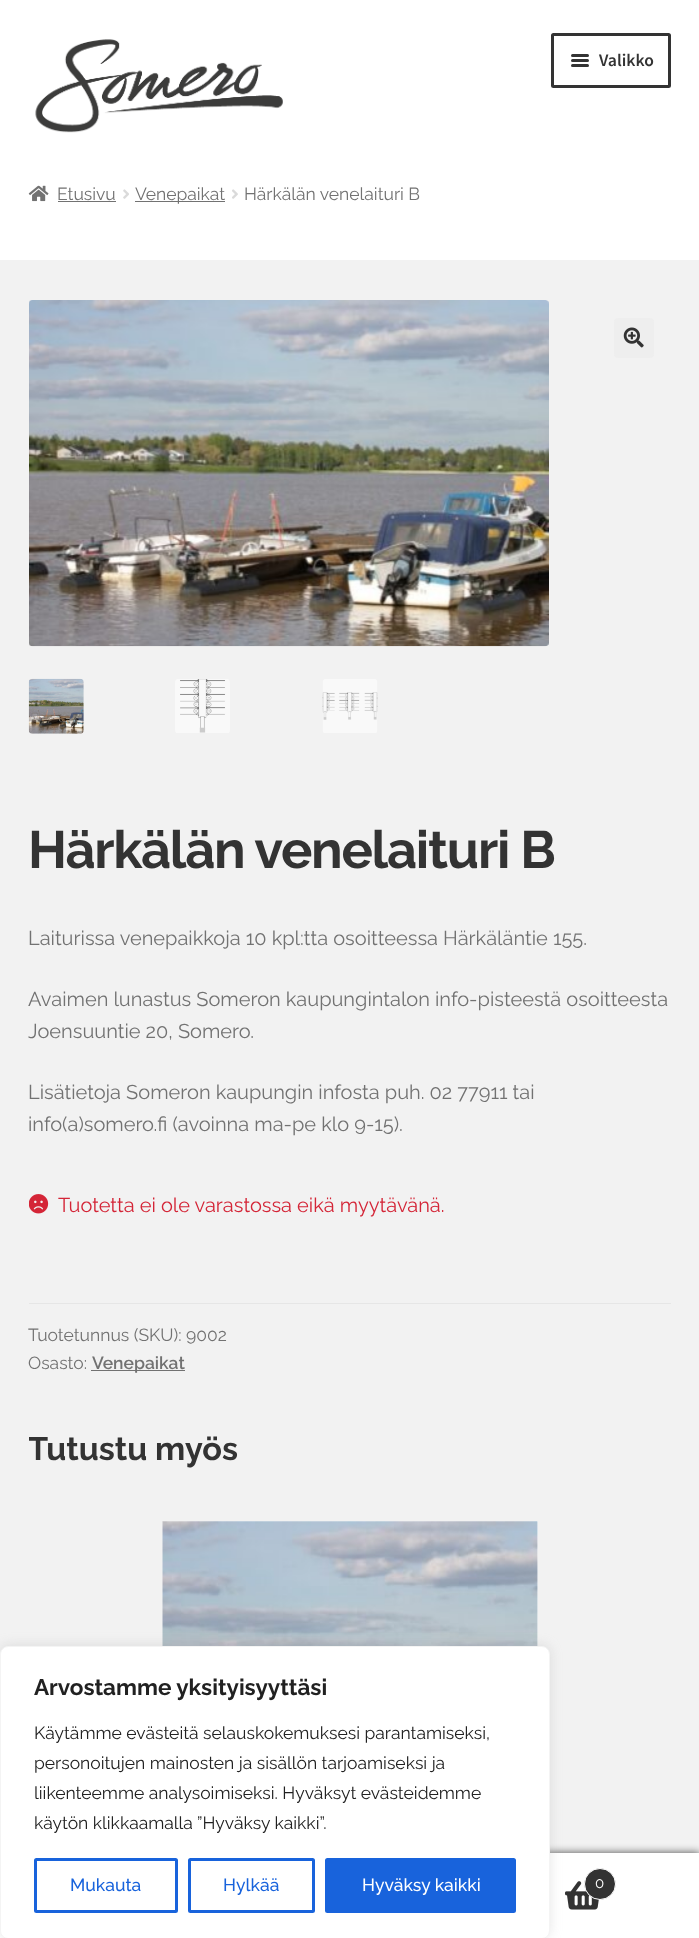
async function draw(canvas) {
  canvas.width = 699
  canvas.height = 1938
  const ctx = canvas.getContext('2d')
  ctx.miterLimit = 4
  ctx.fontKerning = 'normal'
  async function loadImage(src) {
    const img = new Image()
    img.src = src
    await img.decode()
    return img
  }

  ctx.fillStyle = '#fff'
  ctx.fillRect(0, 0, 699, 1938)
  ctx.drawImage(await loadImage('image0.png'), 35, 39, 248, 94)
  ctx.beginPath()
  ctx.roundRect(552.5, 34.5, 117, 52, 1)
  ctx.strokeStyle = '#333'
  ctx.lineWidth = 3
  ctx.stroke()
  ctx.fillStyle = '#333'
  ctx.beginPath()
  ctx.roundRect(571, 54, 18, 3, 1.5)
  ctx.fill()
  ctx.beginPath()
  ctx.roundRect(571, 59, 18, 3, 1.5)
  ctx.fill()
  ctx.font = '600 17.5px Source Sans Pro'
  ctx.fillText('Valikko', 599, 66)
  ctx.beginPath()
  ctx.roundRect(571, 64, 18, 3, 1.5)
  ctx.fill()
  ctx.drawImage(await loadImage('image1.png'), 28, 185, 21, 17)
  ctx.font = '17.5px Raleway'
  ctx.fillStyle = '#727272'
  ctx.fillText('Etusivu', 57, 200)
  ctx.fillRect(58, 201, 58, 1)
  ctx.drawImage(await loadImage('image2.png'), 123, 189, 6, 10)
  ctx.fillRect(135, 201, 90, 1)
  ctx.fillText('Venepaikat', 135, 200)
  ctx.drawImage(await loadImage('image3.png'), 232, 189, 6, 10)
  ctx.fillText('Härkälän venelaituri B', 244, 200)
  ctx.fillStyle = '#f2f2f2'
  ctx.fillRect(0, 260, 699, 1593)
  ctx.drawImage(await loadImage('image4.png'), 29, 300, 520, 347)
  ctx.fillStyle = '#eee'
  ctx.beginPath()
  ctx.roundRect(614, 318, 40, 40, 4)
  ctx.fill()
  ctx.drawImage(await loadImage('image5.png'), 623, 327, 21, 21)
  ctx.drawImage(await loadImage('image6.png'), 28, 678, 56, 56)
  ctx.drawImage(await loadImage('image7.png'), 175, 679, 55, 54)
  ctx.drawImage(await loadImage('image8.png'), 322, 679, 56, 54)
  ctx.letterSpacing = '-1.25px'
  ctx.font = 'bold 52.4px Raleway'
  ctx.fillStyle = '#333'
  ctx.fillText('Härkälän venelaituri B', 28, 868)
  ctx.letterSpacing = '0px'
  ctx.font = '20px Raleway'
  ctx.fillStyle = '#727272'
  ctx.fillText('Laiturissa venepaikkoja 10 kpl:tta osoitteessa Härkäläntie 155.', 28, 945)
  ctx.fillText('Avaimen lunastus Someron kaupungintalon info-pisteestä osoitteesta', 28, 1006)
  ctx.fillText('Joensuuntie 20, Somero.', 28, 1038)
  ctx.fillText('Lisätietoja Someron kaupungin infosta puh. 02 77911 tai', 28, 1099)
  ctx.fillText('info(a)somero.fi (avoinna ma-pe klo 9-15).', 28, 1131)
  ctx.drawImage(await loadImage('image9.png'), 29, 1194, 20, 20)
  ctx.fillStyle = '#d42537'
  ctx.fillText('Tuotetta ei ole varastossa eikä myytävänä.', 58, 1212)
  ctx.fillStyle = '#e6e6e6'
  ctx.fillRect(29, 1303, 642, 1)
  ctx.font = '17.5px Raleway'
  ctx.fillStyle = '#727272'
  ctx.fillText('Tuotetunnus (SKU): 9002', 28, 1341)
  ctx.fillText('Osasto:', 28, 1369)
  ctx.fillRect(91, 1370, 94, 1)
  ctx.font = '600 17.5px Raleway'
  ctx.fillText('Venepaikat', 92, 1369)
  ctx.save()
  ctx.beginPath()
  ctx.rect(29, 300, 642, 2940)
  ctx.clip()
  ctx.font = 'bold 32.5px Raleway'
  ctx.fillStyle = '#333'
  ctx.fillText('Tutustu myös', 28, 1460)
  ctx.restore()
  ctx.fillStyle = '#fff'
  ctx.fillRect(163, 1521, 375, 125)
  ctx.drawImage(await loadImage('image10.png'), 162, 1521, 376, 125)
  ctx.fillStyle = '#000000b3'
  ctx.filter = 'blur(4px)'
  ctx.beginPath()
  ctx.rect(0, 1853, 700, 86)
  ctx.fill()
  ctx.filter = 'none'
  ctx.fillStyle = '#fff'
  ctx.fillRect(550, 1853, 149, 1)
  ctx.fillRect(545, 1854, 154, 84)
  ctx.drawImage(await loadImage('image11.png'), 565, 1881, 34, 29)
  ctx.fillStyle = '#333'
  ctx.beginPath()
  ctx.arc(600, 1884, 15.5, 0, 2 * Math.PI)
  ctx.fill()
  ctx.strokeStyle = '#fff'
  ctx.lineWidth = 1
  ctx.stroke()
  ctx.font = '15px Raleway'
  ctx.fillStyle = '#fff'
  ctx.fillText('0', 595, 1888)
  ctx.fillRect(0, 1931, 5, 7)
  ctx.fillStyle = '#acabab4d'
  ctx.filter = 'blur(6px)'
  ctx.beginPath()
  ctx.roundRect(0, 1645, 550, 293, 8)
  ctx.fill()
  ctx.filter = 'none'
  ctx.fillStyle = '#fff'
  ctx.beginPath()
  ctx.roundRect(0.5, 1646.5, 549, 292, 7.5)
  ctx.fill()
  ctx.strokeStyle = '#f4f4f4'
  ctx.stroke()
  ctx.font = 'bold 22.5px Raleway'
  ctx.fillStyle = '#212121'
  ctx.fillText('Arvostamme yksityisyyttäsi', 34, 1695)
  ctx.font = '17.5px Raleway'
  ctx.fillText('Käytämme evästeitä selauskokemuksesi parantamiseksi,', 34, 1739)
  ctx.fillText('personoitujen mainosten ja sisällön tarjoamiseksi ja', 34, 1769)
  ctx.fillText('liikenteemme analysoimiseksi. Hyväksyt evästeidemme', 34, 1799)
  ctx.fillText('käytön klikkaamalla ”Hyväksy kaikki”.', 34, 1829)
  ctx.beginPath()
  ctx.roundRect(35.5, 1859.5, 141, 52, 1)
  ctx.strokeStyle = '#1863dc'
  ctx.lineWidth = 3
  ctx.stroke()
  ctx.font = '500 17.5px Raleway'
  ctx.fillStyle = '#1863dc'
  ctx.fillText('Mukauta', 70, 1891)
  ctx.beginPath()
  ctx.roundRect(189.5, 1859.5, 124, 52, 1)
  ctx.stroke()
  ctx.fillText('Hylkää', 223, 1891)
  ctx.beginPath()
  ctx.roundRect(326.5, 1859.5, 188, 52, 1)
  ctx.fill()
  ctx.stroke()
  ctx.fillStyle = '#fff'
  ctx.fillText('Hyväksy kaikki', 362, 1891)
}

draw(document.querySelector('canvas'))
